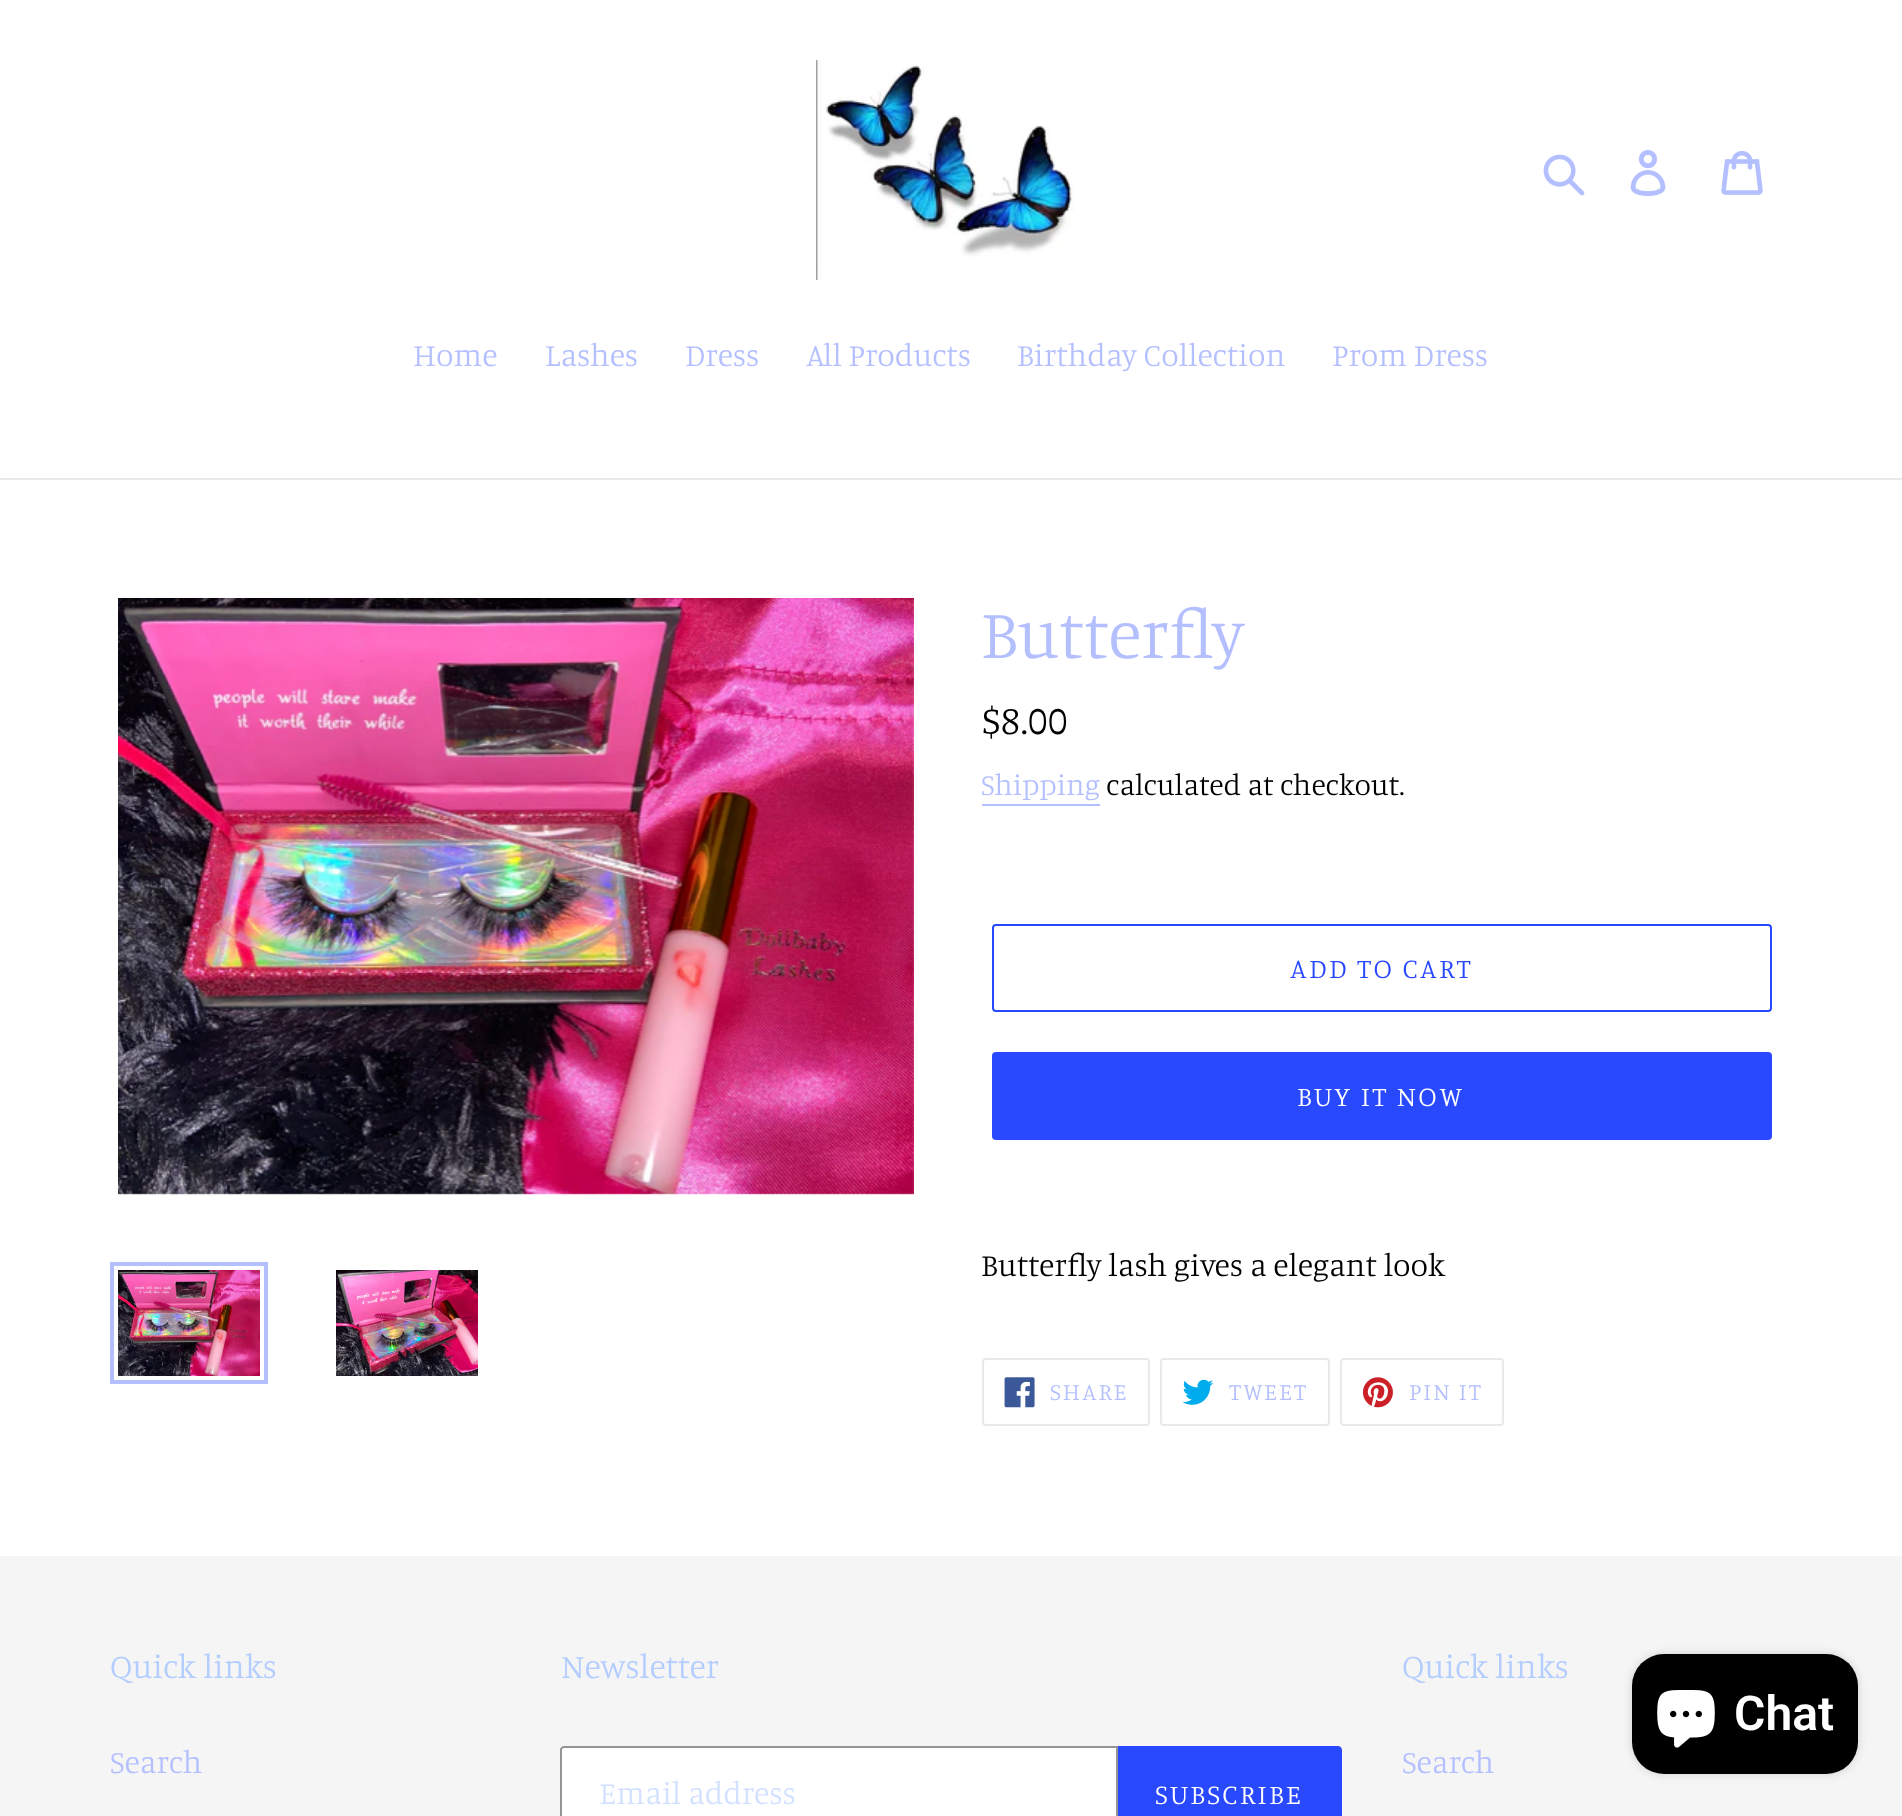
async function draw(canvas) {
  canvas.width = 1902
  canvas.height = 1816
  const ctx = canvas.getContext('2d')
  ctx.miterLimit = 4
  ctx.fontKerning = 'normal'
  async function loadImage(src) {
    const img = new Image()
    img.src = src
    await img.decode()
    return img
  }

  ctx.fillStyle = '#fff'
  ctx.fillRect(0, 0, 1902, 1816)
  ctx.drawImage(await loadImage('image0.png'), 816, 60, 258, 220)
  ctx.drawImage(await loadImage('image1.png'), 1543, 154, 42, 42)
  ctx.drawImage(await loadImage('image2.png'), 1630, 150, 36, 46)
  ctx.drawImage(await loadImage('image3.png'), 1721, 151, 42, 44)
  ctx.fillStyle = '#e8e9eb'
  ctx.fillRect(0, 478, 1902, 2)
  ctx.font = '300 32px Manuale'
  ctx.fillStyle = '#b4bfff'
  ctx.fillText('Home', 413, 366)
  ctx.fillText('Lashes', 545, 366)
  ctx.fillText('Dress', 685, 366)
  ctx.fillText('All Products', 806, 366)
  ctx.fillText('Birthday Collection', 1017, 366)
  ctx.fillText('Prom Dress', 1332, 366)
  ctx.drawImage(await loadImage('image4.png'), 118, 598, 796, 597)
  ctx.strokeStyle = '#b4bfff'
  ctx.lineWidth = 4
  ctx.strokeRect(112, 1264, 154, 118)
  ctx.drawImage(await loadImage('image5.png'), 118, 1270, 142, 106)
  ctx.drawImage(await loadImage('image6.png'), 336, 1270, 142, 106)
  ctx.font = '300 70px Manuale'
  ctx.fillText('Butterfly', 981, 658)
  ctx.font = '300 40px Manuale'
  ctx.fillStyle = '#000'
  ctx.fillText('$8.00', 981, 734)
  ctx.font = '300 30px Manuale'
  ctx.fillStyle = '#b4bfff'
  ctx.fillText('Shipping', 981, 795)
  ctx.fillRect(982, 804, 118, 2)
  ctx.fillStyle = '#000'
  ctx.fillText('calculated at checkout.', 1106, 795)
  ctx.beginPath()
  ctx.roundRect(993, 925, 778, 86, 3)
  ctx.strokeStyle = '#2949ff'
  ctx.lineWidth = 2
  ctx.stroke()
  ctx.letterSpacing = '2.25px'
  ctx.font = '300 28px Manuale'
  ctx.fillStyle = '#2949ff'
  ctx.fillText('ADD TO CART', 1290, 978)
  ctx.beginPath()
  ctx.roundRect(992, 1052, 780, 88, 4)
  ctx.fill()
  ctx.fillStyle = '#fff'
  ctx.fillText('BUY IT NOW', 1297, 1106)
  ctx.letterSpacing = '0px'
  ctx.font = '300 32px Manuale'
  ctx.fillStyle = '#000'
  ctx.fillText('Butterfly lash gives a elegant look', 981, 1276)
  ctx.beginPath()
  ctx.roundRect(983, 1359, 166, 66, 3)
  ctx.strokeStyle = '#e8e9eb'
  ctx.stroke()
  ctx.drawImage(await loadImage('image7.png'), 1004, 1377, 31, 31)
  ctx.letterSpacing = '2px'
  ctx.font = '300 24px Manuale'
  ctx.fillStyle = '#b4bfff'
  ctx.fillText('SHARE', 1050, 1400)
  ctx.beginPath()
  ctx.roundRect(1161, 1359, 168, 66, 3)
  ctx.stroke()
  ctx.drawImage(await loadImage('image8.png'), 1182, 1379, 32, 26)
  ctx.fillText('TWEET', 1229, 1400)
  ctx.beginPath()
  ctx.roundRect(1341, 1359, 162, 66, 3)
  ctx.stroke()
  ctx.drawImage(await loadImage('image9.png'), 1362, 1377, 31, 31)
  ctx.fillText('PIN IT', 1409, 1400)
  ctx.fillStyle = '#f5f5f5'
  ctx.fillRect(0, 1556, 1902, 260)
  ctx.letterSpacing = '0px'
  ctx.font = '300 34px Manuale'
  ctx.fillStyle = '#b4cdff'
  ctx.fillText('Quick links', 110, 1678)
  ctx.font = '300 32px Manuale'
  ctx.fillStyle = '#b4bfff'
  ctx.fillText('Search', 110, 1773)
  ctx.font = '300 34px Manuale'
  ctx.fillStyle = '#b4cdff'
  ctx.fillText('Newsletter', 561, 1678)
  ctx.fillStyle = '#fff'
  ctx.beginPath()
  ctx.moveTo(564, 1747)
  ctx.lineTo(1117, 1747)
  ctx.lineTo(1117, 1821)
  ctx.lineTo(564, 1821)
  ctx.bezierCurveTo(562.5, 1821, 561, 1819.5, 561, 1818)
  ctx.lineTo(561, 1750)
  ctx.bezierCurveTo(561, 1748.5, 562.5, 1747, 564, 1747)
  ctx.closePath()
  ctx.fill()
  ctx.strokeStyle = '#949494'
  ctx.stroke()
  ctx.font = '300 32px Manuale'
  ctx.fillStyle = '#d2e1ff'
  ctx.fillText('Email address', 599, 1804)
  ctx.fillStyle = '#2949ff'
  ctx.beginPath()
  ctx.moveTo(1118, 1746)
  ctx.lineTo(1338, 1746)
  ctx.bezierCurveTo(1340, 1746, 1342, 1748, 1342, 1750)
  ctx.lineTo(1342, 1816)
  ctx.bezierCurveTo(1342, 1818, 1340, 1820, 1338, 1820)
  ctx.lineTo(1118, 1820)
  ctx.closePath()
  ctx.fill()
  ctx.letterSpacing = '2.25px'
  ctx.font = '300 28px Manuale'
  ctx.fillStyle = '#fff'
  ctx.fillText('SUBSCRIBE', 1155, 1804)
  ctx.letterSpacing = '0px'
  ctx.font = '300 34px Manuale'
  ctx.fillStyle = '#b4cdff'
  ctx.fillText('Quick links', 1402, 1678)
  ctx.font = '300 32px Manuale'
  ctx.fillStyle = '#b4bfff'
  ctx.fillText('Search', 1402, 1773)
  ctx.fillStyle = '#00000026'
  ctx.filter = 'blur(5px)'
  ctx.beginPath()
  ctx.roundRect(1632, 1654, 226, 120, 32)
  ctx.fill()
  ctx.filter = 'none'
  ctx.fillStyle = '#000'
  ctx.beginPath()
  ctx.roundRect(1632, 1654, 226, 120, 32)
  ctx.fill()
  ctx.drawImage(await loadImage('image10.png'), 1657, 1690, 58, 58)
  ctx.font = '600 48px Roboto'
  ctx.fillStyle = '#fff'
  ctx.fillText('Chat', 1734, 1730)
}

draw(document.querySelector('canvas'))
